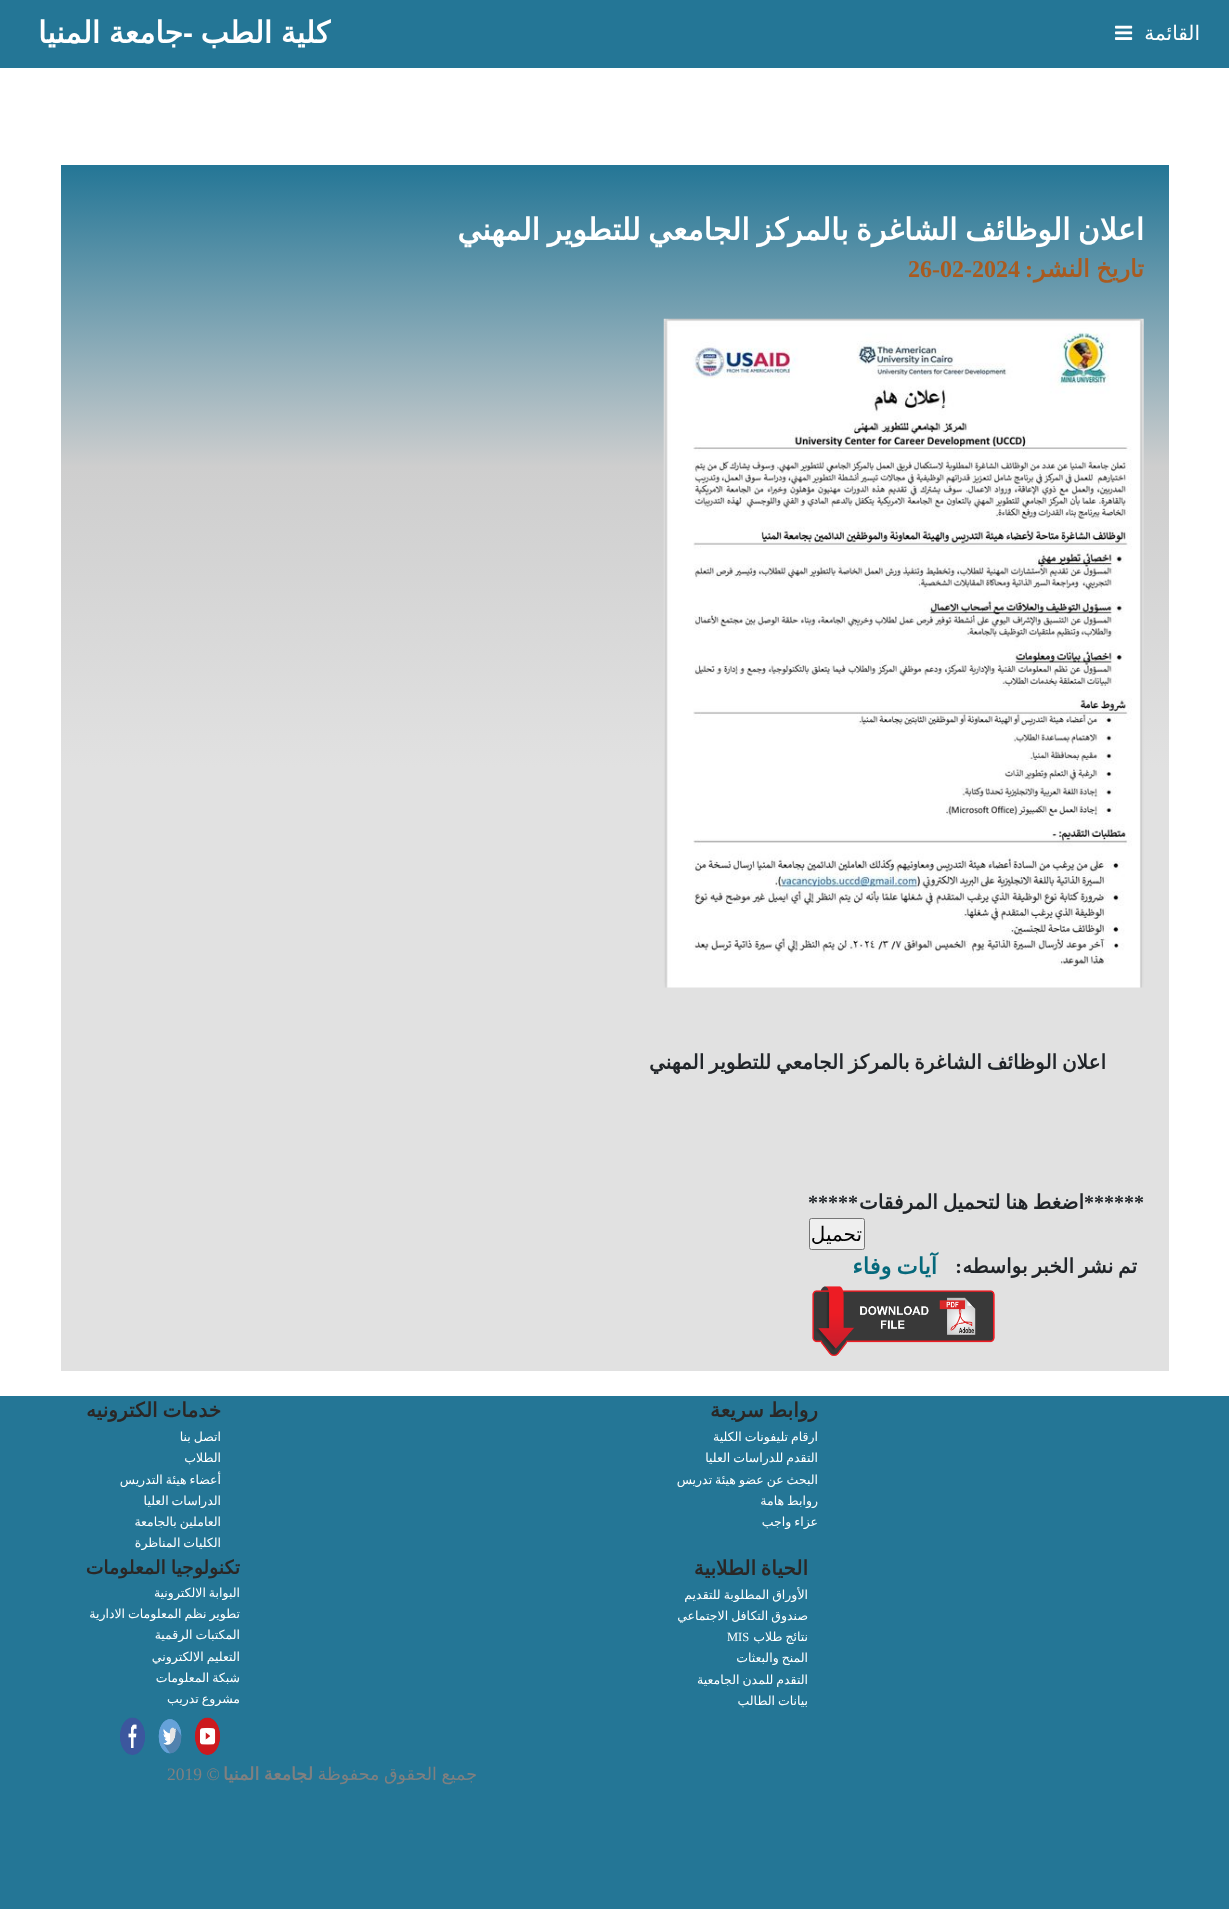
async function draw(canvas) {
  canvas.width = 1229
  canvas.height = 1909
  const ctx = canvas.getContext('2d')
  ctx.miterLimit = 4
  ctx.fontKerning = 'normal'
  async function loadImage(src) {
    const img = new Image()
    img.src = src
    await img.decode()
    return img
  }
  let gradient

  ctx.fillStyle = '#fff'
  ctx.fillRect(0, 0, 1229, 1909)
  ctx.fillStyle = '#247696'
  ctx.fillRect(0, 0, 1229, 68)
  ctx.direction = 'rtl'
  ctx.font = '20px DejaVu Sans'
  ctx.fillStyle = '#fff'
  ctx.fillText('القائمة', 1200, 40)
  ctx.drawImage(await loadImage('image0.png'), 1115, 25, 18, 15)
  ctx.wordSpacing = '-1px'
  ctx.font = 'bold 30px DejaVu Sans'
  ctx.fillText('كلية الطب', 330, 43)
  ctx.wordSpacing = '0px'
  ctx.font = 'bold 30px Liberation Sans'
  ctx.fillText('-', 193, 43)
  ctx.wordSpacing = '-1px'
  ctx.font = 'bold 30px DejaVu Sans'
  ctx.fillText('جامعة المنيا', 183, 43)
  gradient = ctx.createLinearGradient(615, 165, 615, 1371)
  gradient.addColorStop(0, '#247696')
  gradient.addColorStop(0.25, '#cecece')
  gradient.addColorStop(0.5, '#e1e1e1')
  gradient.addColorStop(1, '#e1e1e1')
  ctx.fillStyle = gradient
  ctx.fillRect(61, 165, 1108, 1206)
  ctx.wordSpacing = '-2px'
  ctx.fillStyle = '#fff'
  ctx.fillText('اعلان الوظائف الشاغرة بالمركز الجامعي للتطوير المهني', 1144, 240)
  ctx.wordSpacing = '-1px'
  ctx.font = 'bold 24px DejaVu Sans'
  ctx.fillStyle = '#a95b20'
  ctx.fillText('تاريخ النشر', 1144, 277)
  ctx.wordSpacing = '0px'
  ctx.font = 'bold 24px Liberation Serif'
  ctx.fillText(':', 1033, 277)
  ctx.direction = 'ltr'
  ctx.fillText('26-02-2024', 908, 277)
  ctx.drawImage(await loadImage('image1.png'), 663, 318, 481, 670)
  ctx.wordSpacing = '-1.5px'
  ctx.direction = 'rtl'
  ctx.font = 'bold 20px DejaVu Sans'
  ctx.fillStyle = '#212529'
  ctx.fillText('اعلان الوظائف الشاغرة بالمركز الجامعي للتطوير المهني', 1106, 1069)
  ctx.fillText('اضغط هنا لتحميل المرفقات', 1084, 1209)
  ctx.wordSpacing = '0px'
  ctx.font = 'bold 20px Liberation Serif'
  ctx.fillText('******', 1144, 1209)
  ctx.fillText('*****', 858, 1209)
  ctx.fillStyle = '#efefef'
  ctx.beginPath()
  ctx.roundRect(809.5, 1218.5, 55, 31, 2)
  ctx.fill()
  ctx.strokeStyle = '#767676'
  ctx.stroke()
  ctx.font = '20px DejaVu Sans'
  ctx.fillStyle = '#000'
  ctx.fillText('تحميل', 862, 1241)
  ctx.wordSpacing = '-1.5px'
  ctx.font = 'bold 20px DejaVu Sans'
  ctx.fillStyle = '#212529'
  ctx.fillText('تم نشر الخبر بواسطه', 1137, 1273)
  ctx.wordSpacing = '0px'
  ctx.font = 'bold 20px Liberation Serif'
  ctx.fillText(':', 962, 1273)
  ctx.wordSpacing = '-2px'
  ctx.font = 'bold 22.5px DejaVu Sans'
  ctx.fillStyle = '#05687b'
  ctx.fillText('آيات وفاء', 937, 1274)
  ctx.drawImage(await loadImage('image2.png'), 812, 1286, 183, 70)
  ctx.fillStyle = '#247696'
  ctx.fillRect(0, 1396, 1229, 513)
  ctx.wordSpacing = '-1.5px'
  ctx.font = 'bold 20px DejaVu Sans'
  ctx.fillStyle = '#2a2726'
  ctx.fillText('روابط سريعة', 818, 1417)
  ctx.wordSpacing = '-1px'
  ctx.font = '12.5px DejaVu Sans'
  ctx.fillStyle = '#fff'
  ctx.fillText('ارقام تليفونات الكلية', 818, 1441)
  ctx.fillText('التقدم للدراسات العليا', 818, 1462)
  ctx.fillText('البحث عن عضو هيئة تدريس', 818, 1484)
  ctx.fillText('روابط هامة', 818, 1505)
  ctx.fillText('عزاء واجب', 818, 1526)
  ctx.wordSpacing = '-1.5px'
  ctx.font = 'bold 20px DejaVu Sans'
  ctx.fillStyle = '#2a2726'
  ctx.fillText('خدمات الكترونيه', 221, 1417)
  ctx.wordSpacing = '-1px'
  ctx.font = '12.5px DejaVu Sans'
  ctx.fillStyle = '#fff'
  ctx.fillText('اتصل بنا', 221, 1441)
  ctx.wordSpacing = '0px'
  ctx.fillText('الطلاب', 221, 1462)
  ctx.wordSpacing = '-1px'
  ctx.fillText('أعضاء هيئة التدريس', 221, 1484)
  ctx.fillText('الدراسات العليا', 221, 1505)
  ctx.fillText('العاملين بالجامعة', 221, 1526)
  ctx.fillText('الكليات المناظرة', 221, 1547)
  ctx.wordSpacing = '-1.5px'
  ctx.font = 'bold 20px DejaVu Sans'
  ctx.fillStyle = '#2a2726'
  ctx.fillText('الحياة الطلابية', 808, 1575)
  ctx.wordSpacing = '-1px'
  ctx.font = '12.5px DejaVu Sans'
  ctx.fillStyle = '#fff'
  ctx.fillText('الأوراق المطلوبة للتقديم', 808, 1599)
  ctx.fillText('صندوق التكافل الاجتماعي', 808, 1620)
  ctx.fillText('نتائج طلاب', 808, 1641)
  ctx.wordSpacing = '0px'
  ctx.direction = 'ltr'
  ctx.font = '12.5px Liberation Serif'
  ctx.fillText('MIS', 727, 1641)
  ctx.wordSpacing = '-1px'
  ctx.direction = 'rtl'
  ctx.font = '12.5px DejaVu Sans'
  ctx.fillText('المنح والبعثات', 808, 1662)
  ctx.fillText('التقدم للمدن الجامعية', 808, 1684)
  ctx.fillText('بيانات الطالب', 808, 1705)
  ctx.font = 'bold 18.75px DejaVu Sans'
  ctx.fillStyle = '#2a2726'
  ctx.fillText('تكنولوجيا المعلومات', 240, 1574)
  ctx.font = '12.5px DejaVu Sans'
  ctx.fillStyle = '#fff'
  ctx.fillText('البوابة الالكترونية', 240, 1597)
  ctx.fillText('تطوير نظم المعلومات الادارية', 240, 1618)
  ctx.fillText('المكتبات الرقمية', 240, 1639)
  ctx.fillText('التعليم الالكتروني', 240, 1661)
  ctx.fillText('شبكة المعلومات', 240, 1682)
  ctx.fillText('مشروع تدريب', 240, 1703)
  ctx.drawImage(await loadImage('image3.png'), 195, 1717, 25, 38)
  ctx.drawImage(await loadImage('image4.png'), 158, 1719, 24, 35)
  ctx.drawImage(await loadImage('image5.png'), 120, 1717, 25, 38)
  ctx.font = '17.5px DejaVu Sans'
  ctx.fillStyle = '#808080'
  ctx.fillText('جميع الحقوق محفوظة', 477, 1780)
  ctx.font = 'bold 17.5px DejaVu Sans'
  ctx.fillText('لجامعة المنيا', 313, 1780)
  ctx.wordSpacing = '0px'
  ctx.direction = 'ltr'
  ctx.font = '17.5px Liberation Serif'
  ctx.fillText('2019 ©', 167, 1780)
}

draw(document.querySelector('canvas'))
